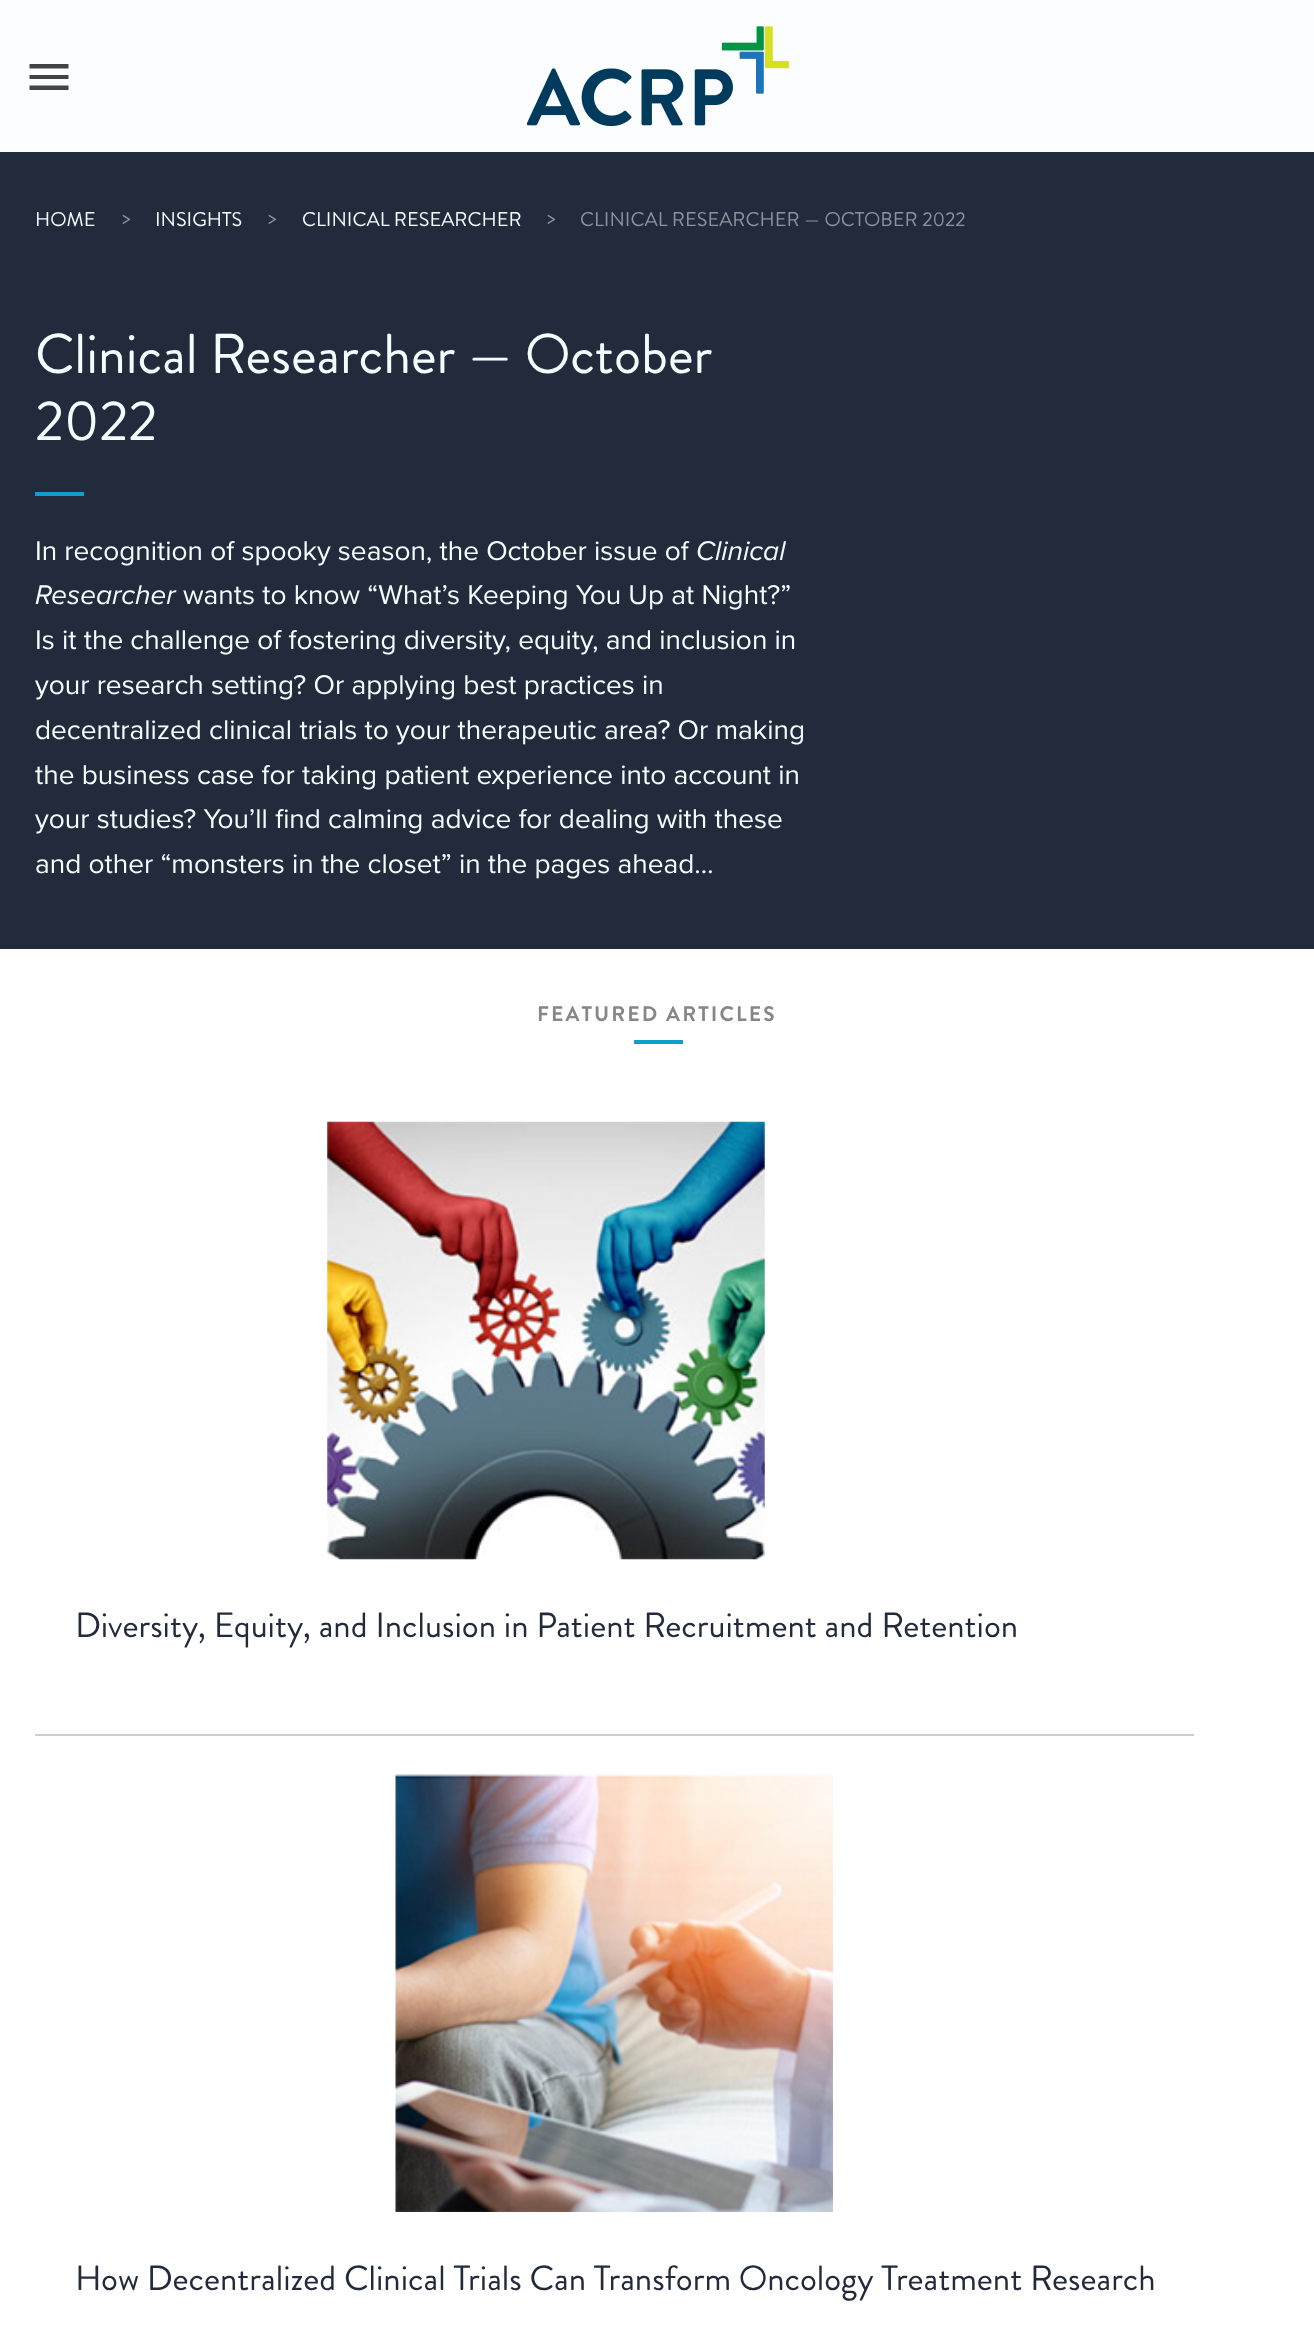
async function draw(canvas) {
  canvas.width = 1314
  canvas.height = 2326
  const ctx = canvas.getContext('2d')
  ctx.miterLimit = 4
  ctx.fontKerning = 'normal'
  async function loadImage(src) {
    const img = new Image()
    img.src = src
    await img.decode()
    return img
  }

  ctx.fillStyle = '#fcfdfe'
  ctx.fillRect(0, 0, 1314, 2326)
  ctx.fillStyle = '#444'
  ctx.beginPath()
  ctx.moveTo(29.5, 64)
  ctx.lineTo(68.5, 64)
  ctx.lineTo(68.5, 68.5)
  ctx.lineTo(29.5, 68.5)
  ctx.closePath()
  ctx.moveTo(29.5, 79)
  ctx.lineTo(29.5, 75)
  ctx.lineTo(68.5, 75)
  ctx.lineTo(68.5, 79)
  ctx.closePath()
  ctx.moveTo(29.5, 90)
  ctx.lineTo(29.5, 85.5)
  ctx.lineTo(68.5, 85.5)
  ctx.lineTo(68.5, 90)
  ctx.closePath()
  ctx.fill()
  ctx.drawImage(await loadImage('image0.png'), 527, 26, 262, 100)
  ctx.fillStyle = '#212b3b'
  ctx.fillRect(0, 152, 1314, 797)
  ctx.font = '19.9px Brandon Grotesque'
  ctx.fillStyle = '#f3fcff'
  ctx.fillText('HOME', 35, 226)
  ctx.fillStyle = '#8a949d'
  ctx.fillText('>', 122, 224)
  ctx.fillStyle = '#f3fcff'
  ctx.fillText('INSIGHTS', 155, 226)
  ctx.fillStyle = '#8a949d'
  ctx.fillText('>', 268, 224)
  ctx.fillStyle = '#f3fcff'
  ctx.fillText('CLINICAL RESEARCHER', 302, 226)
  ctx.fillStyle = '#8a949d'
  ctx.fillText('>', 547, 224)
  ctx.fillText('CLINICAL RESEARCHER — OCTOBER 2022', 580, 226)
  ctx.font = '56px Brandon Grotesque'
  ctx.fillStyle = '#f3fcff'
  ctx.fillText('Clinical Researcher — October', 35, 373)
  ctx.fillText('2022', 35, 440)
  ctx.fillStyle = '#109ecd'
  ctx.fillRect(35, 492, 49, 4)
  ctx.font = '28px Proxima Nova'
  ctx.fillStyle = '#f3fcff'
  ctx.fillText('In recognition of spooky season, the October issue of', 35, 560)
  ctx.font = 'italic 28px Proxima Nova'
  ctx.fillText('Clinical', 696, 560)
  ctx.fillText('Researcher', 35, 604)
  ctx.font = '28px Proxima Nova'
  ctx.fillText('wants to know “What’s Keeping You Up at Night?”', 183, 604)
  ctx.fillText('Is it the challenge of fostering diversity, equity, and inclusion in', 35, 649)
  ctx.fillText('your research setting? Or applying best practices in', 35, 694)
  ctx.fillText('decentralized clinical trials to your therapeutic area? Or making', 35, 739)
  ctx.fillText('the business case for taking patient experience into account in', 35, 784)
  ctx.fillText('your studies? You’ll find calming advice for dealing with these', 35, 828)
  ctx.fillText('and other “monsters in the closet” in the pages ahead…', 35, 873)
  ctx.fillStyle = '#fff'
  ctx.fillRect(0, 949, 1314, 1377)
  ctx.letterSpacing = '2.1px'
  ctx.font = 'bold 21px Brandon Grotesque'
  ctx.fillStyle = '#878787'
  ctx.fillText('FEATURED ARTICLES', 537, 1021)
  ctx.fillStyle = '#109ecd'
  ctx.fillRect(634, 1040, 49, 4)
  ctx.drawImage(await loadImage('image1.png'), 327, 1121, 438, 439)
  ctx.letterSpacing = '0px'
  ctx.font = '35px Brandon Grotesque'
  ctx.fillStyle = '#212b3b'
  ctx.fillText('Diversity, Equity, and Inclusion in Patient Recruitment and Retention', 75, 1637)
  ctx.fillStyle = '#c9cfd2'
  ctx.fillRect(35, 1734, 1159, 2)
  ctx.drawImage(await loadImage('image2.png'), 395, 1774, 438, 438)
  ctx.fillStyle = '#212b3b'
  ctx.fillText('How Decentralized Clinical Trials Can Transform Oncology Treatment Research', 75, 2290)
}

draw(document.querySelector('canvas'))
